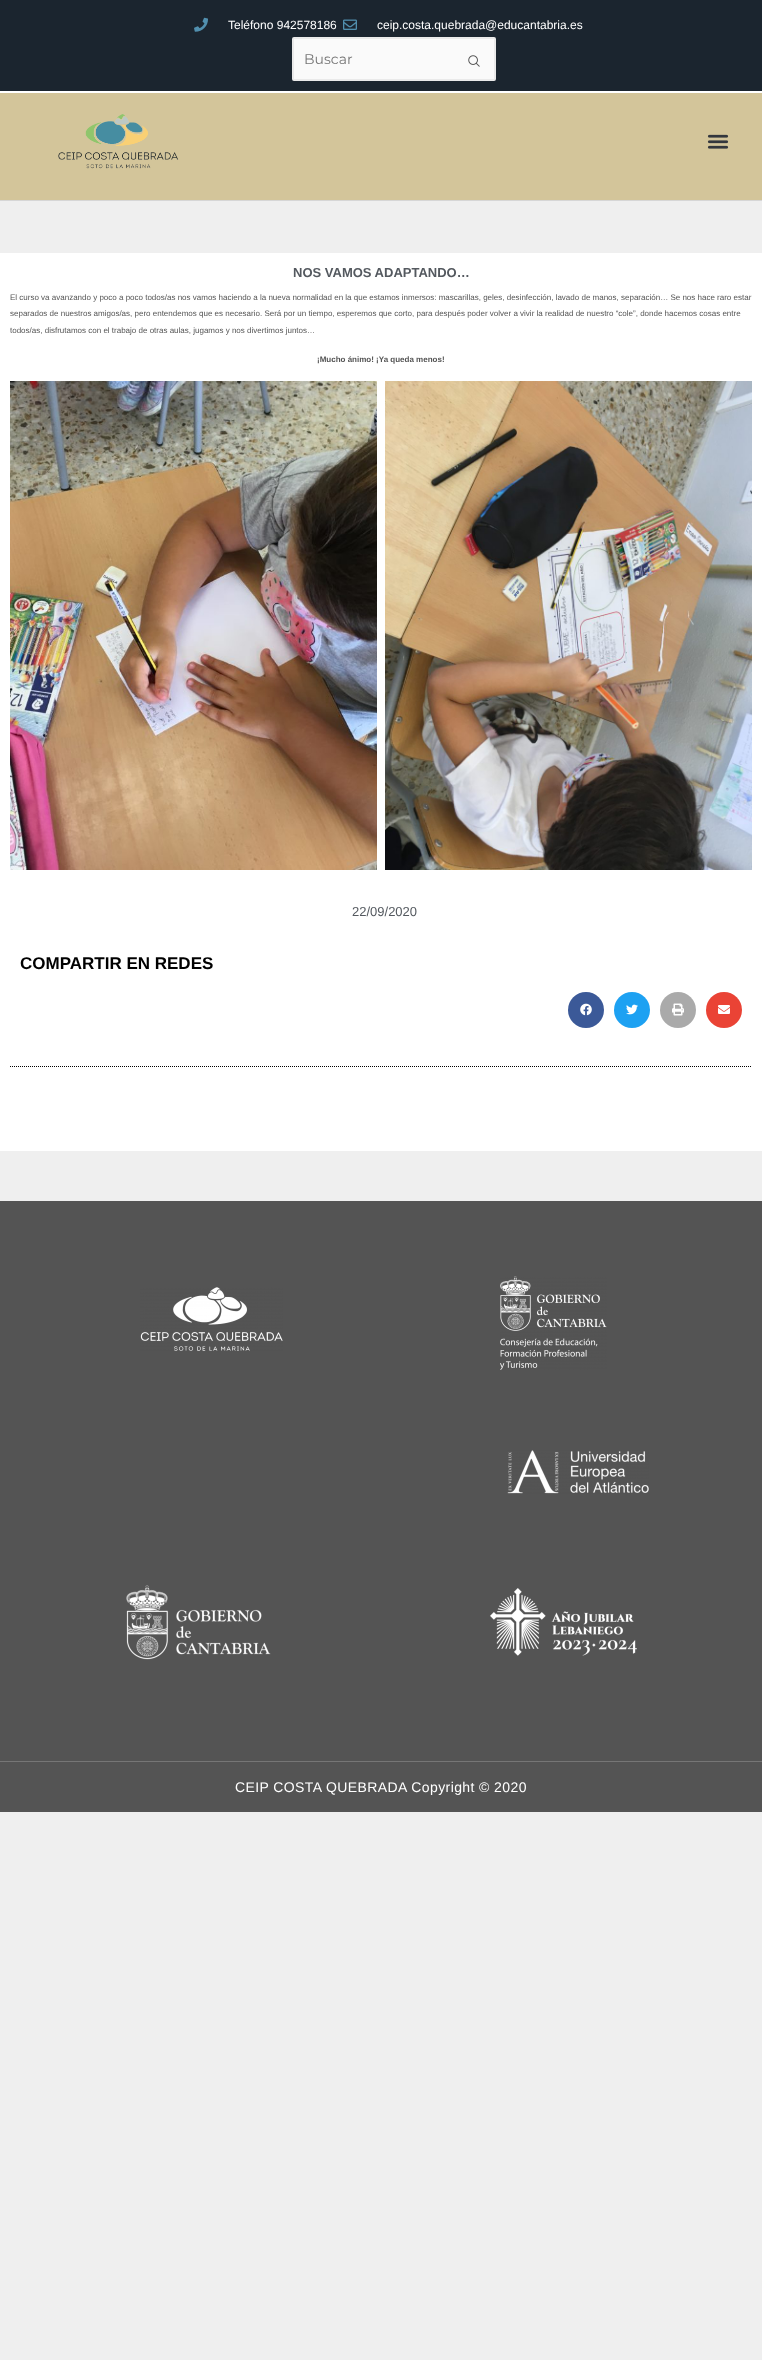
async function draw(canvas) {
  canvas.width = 762
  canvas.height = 2360
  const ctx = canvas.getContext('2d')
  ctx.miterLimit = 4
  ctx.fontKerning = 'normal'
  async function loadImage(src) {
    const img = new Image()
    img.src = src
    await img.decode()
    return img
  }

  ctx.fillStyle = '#efefef'
  ctx.fillRect(0, 0, 762, 2360)
  ctx.fillStyle = '#fff'
  ctx.fillRect(0, 91, 762, 2)
  ctx.fillStyle = '#1b252f'
  ctx.fillRect(0, 0, 762, 91)
  ctx.drawImage(await loadImage('image0.png'), 194, 17, 14, 15)
  ctx.font = '12px Liberation Sans'
  ctx.fillStyle = '#fff'
  ctx.fillText('Teléfono 942578186', 228, 29)
  ctx.drawImage(await loadImage('image1.png'), 343, 19, 14, 11)
  ctx.fillText('ceip.costa.quebrada@educantabria.es', 377, 29)
  ctx.fillStyle = '#fafafa'
  ctx.beginPath()
  ctx.roundRect(293, 38, 202, 42, 1)
  ctx.fill()
  ctx.strokeStyle = '#eaeaea'
  ctx.lineWidth = 2
  ctx.stroke()
  ctx.font = '14px Montserrat'
  ctx.fillStyle = '#757575'
  ctx.fillText('Buscar', 304, 64)
  ctx.drawImage(await loadImage('image2.png'), 468, 55, 12, 12)
  ctx.fillStyle = '#d3c59a'
  ctx.fillRect(0, 93, 762, 107)
  ctx.fillStyle = '#d6d6d6'
  ctx.fillRect(0, 200, 762, 1)
  ctx.drawImage(await loadImage('image3.png'), 58, 114, 121, 55)
  ctx.drawImage(await loadImage('image4.png'), 707, 134, 22, 15)
  ctx.fillStyle = '#fff'
  ctx.fillRect(0, 253, 762, 898)
  ctx.font = 'bold 13px Liberation Sans'
  ctx.fillStyle = '#54595f'
  ctx.fillText('NOS VAMOS ADAPTANDO…', 293, 277)
  ctx.font = '8px Liberation Sans'
  ctx.fillStyle = '#545454'
  ctx.fillText('El curso va avanzando y poco a poco todos/as nos vamos haciendo a la nueva normalidad en la que estamos inmersos: mascarillas, geles, desinfección, lavado de manos, separación… Se nos hace raro estar', 10, 300)
  ctx.fillText('separados de nuestros amigos/as, pero entendemos que es necesario. Será por un tiempo, esperemos que corto, para después poder volver a vivir la realidad de nuestro “cole”, donde hacemos cosas entre', 10, 316)
  ctx.fillText('todos/as, disfrutamos con el trabajo de otras aulas, jugamos y nos divertimos juntos…', 10, 333)
  ctx.font = 'bold 8px Liberation Sans'
  ctx.fillText('¡Mucho ánimo! ¡Ya queda menos!', 317, 362)
  ctx.drawImage(await loadImage('image5.png'), 10, 381, 367, 489)
  ctx.drawImage(await loadImage('image6.png'), 385, 381, 367, 489)
  ctx.font = '13px Liberation Sans'
  ctx.fillStyle = '#54595f'
  ctx.fillText('22/09/2020', 352, 916)
  ctx.font = 'bold 17px Liberation Sans'
  ctx.fillStyle = '#000'
  ctx.fillText('COMPARTIR EN REDES', 20, 969)
  ctx.fillStyle = '#3b5998'
  ctx.beginPath()
  ctx.arc(586, 1010, 18, 0, 2 * Math.PI)
  ctx.fill()
  ctx.drawImage(await loadImage('image7.png'), 580, 1003, 12, 13)
  ctx.fillStyle = '#1da1f2'
  ctx.beginPath()
  ctx.arc(632, 1010, 18, 0, 2 * Math.PI)
  ctx.fill()
  ctx.drawImage(await loadImage('image8.png'), 626, 1004, 12, 11)
  ctx.fillStyle = '#aaa'
  ctx.beginPath()
  ctx.arc(678, 1010, 18, 0, 2 * Math.PI)
  ctx.fill()
  ctx.drawImage(await loadImage('image9.png'), 672, 1003, 12, 13)
  ctx.fillStyle = '#ea4335'
  ctx.beginPath()
  ctx.arc(724, 1010, 18, 0, 2 * Math.PI)
  ctx.fill()
  ctx.drawImage(await loadImage('image10.png'), 718, 1005, 12, 9)
  ctx.beginPath()
  ctx.moveTo(10, 1066.5)
  ctx.lineTo(752, 1066.5)
  ctx.strokeStyle = '#000'
  ctx.lineWidth = 1
  ctx.setLineDash([1, 1])
  ctx.stroke()
  ctx.fillStyle = '#545454'
  ctx.fillRect(0, 1201, 762, 560)
  ctx.drawImage(await loadImage('image11.png'), 140, 1287, 143, 64)
  ctx.drawImage(await loadImage('image12.png'), 500, 1276, 107, 94)
  ctx.drawImage(await loadImage('image13.png'), 507, 1450, 142, 44)
  ctx.drawImage(await loadImage('image14.png'), 126, 1585, 145, 75)
  ctx.drawImage(await loadImage('image15.png'), 490, 1588, 147, 68)
  ctx.fillRect(0, 1762, 762, 50)
  ctx.fillStyle = '#767676'
  ctx.fillRect(0, 1761, 762, 1)
  ctx.letterSpacing = '0.4px'
  ctx.font = '14px Liberation Sans'
  ctx.fillStyle = '#fff'
  ctx.fillText('CEIP COSTA QUEBRADA Copyright © 2020', 235, 1792)
}

draw(document.querySelector('canvas'))
